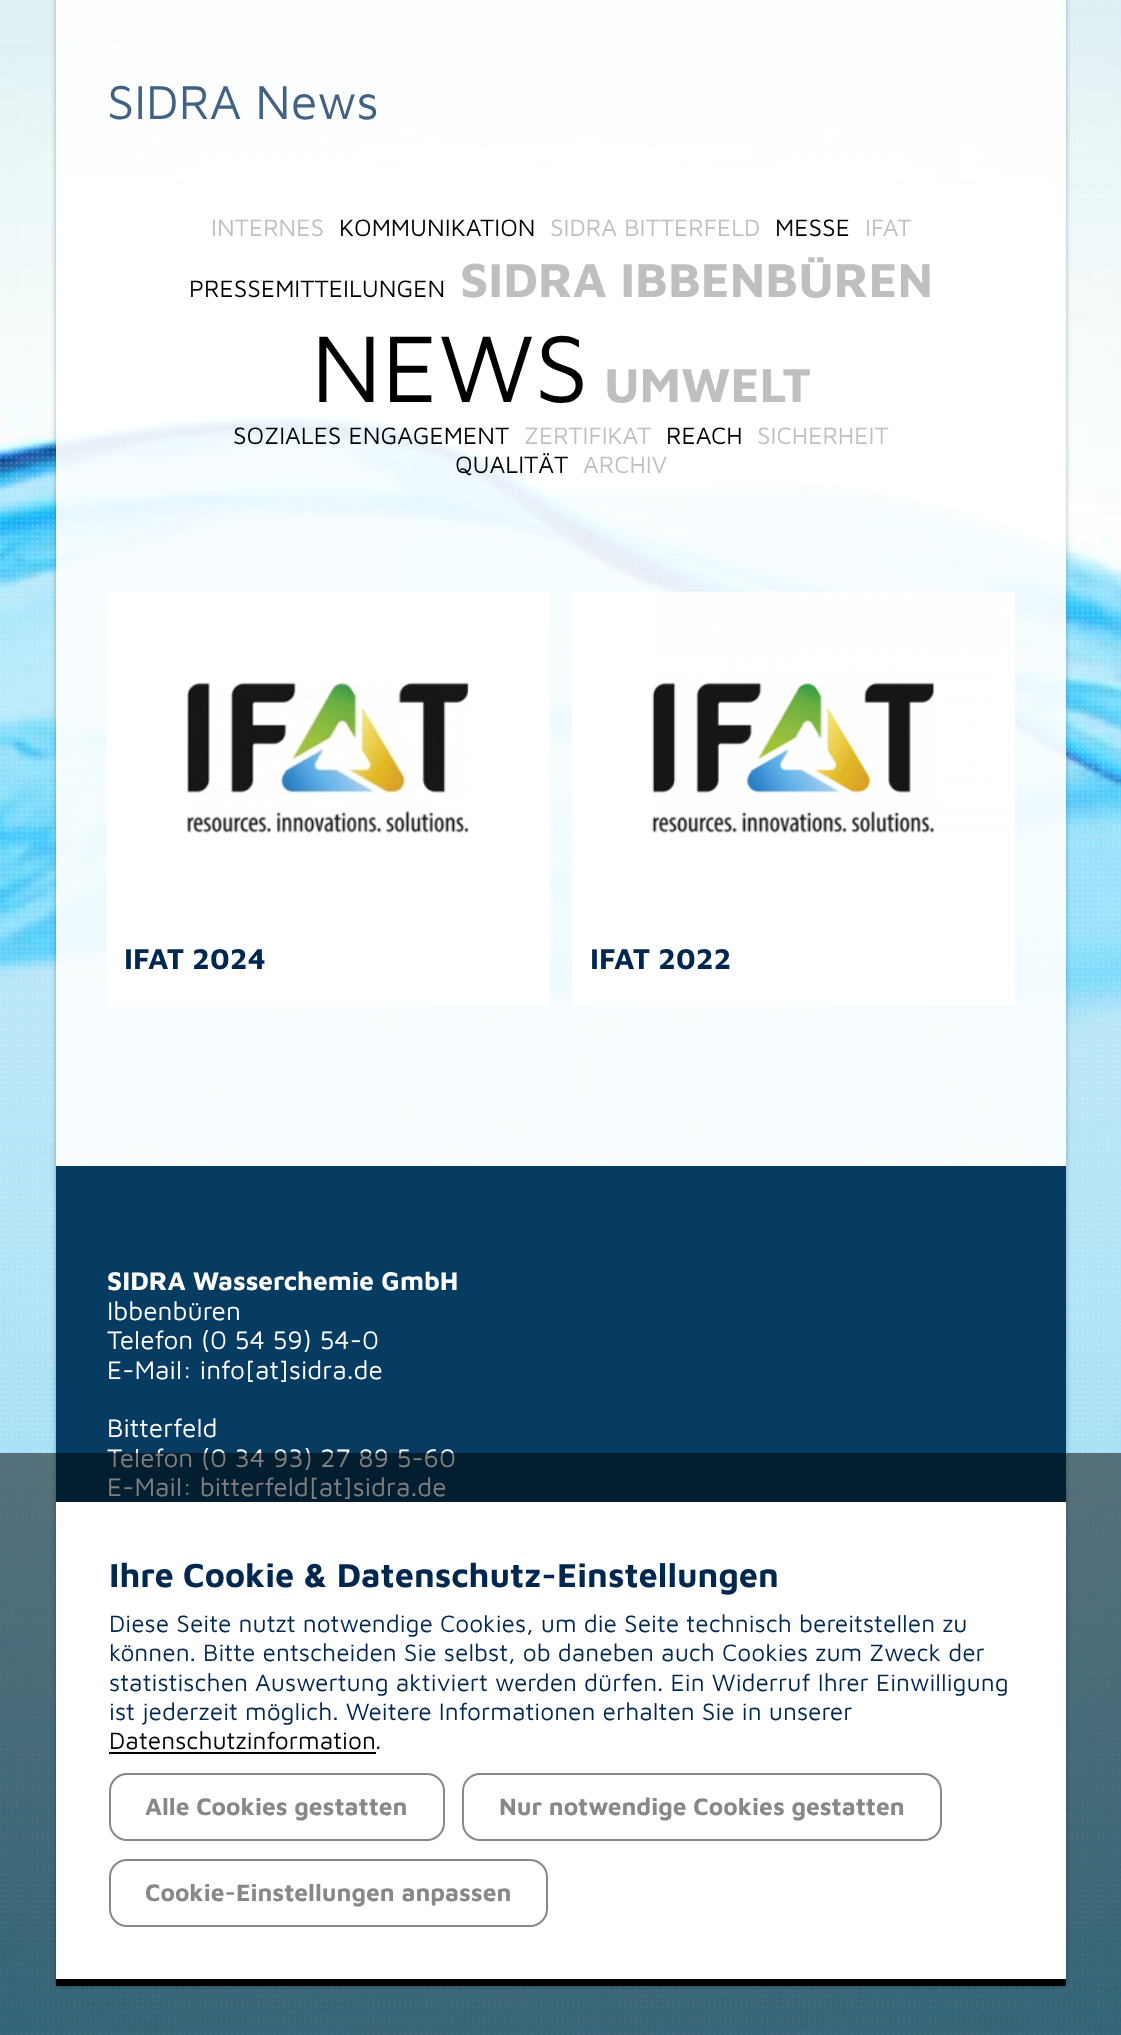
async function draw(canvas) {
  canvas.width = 1121
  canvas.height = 2035
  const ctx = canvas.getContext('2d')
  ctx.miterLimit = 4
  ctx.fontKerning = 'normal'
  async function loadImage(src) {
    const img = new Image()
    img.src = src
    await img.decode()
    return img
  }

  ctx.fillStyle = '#fff'
  ctx.fillRect(0, 0, 1121, 2035)
  ctx.drawImage(await loadImage('image0.png'), 0, 0, 1121, 2035)
  ctx.drawImage(await loadImage('image1.png'), 0, 0, 1121, 2034)
  ctx.save()
  ctx.beginPath()
  ctx.moveTo(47, 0)
  ctx.lineTo(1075, 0)
  ctx.lineTo(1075, 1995)
  ctx.lineTo(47, 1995)
  ctx.closePath()
  ctx.moveTo(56, -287)
  ctx.lineTo(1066, -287)
  ctx.lineTo(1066, 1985)
  ctx.lineTo(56, 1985)
  ctx.closePath()
  ctx.clip('evenodd')
  ctx.fillStyle = '#00275059'
  ctx.filter = 'blur(2.5px)'
  ctx.beginPath()
  ctx.rect(56, -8, 1010, 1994)
  ctx.fill()
  ctx.filter = 'none'
  ctx.restore()
  ctx.fillStyle = '#ffffffe6'
  ctx.fillRect(56, 0, 1010, 1166)
  ctx.font = '49px Maven Pro'
  ctx.fillStyle = '#416283'
  ctx.fillText('SIDRA News', 107, 119)
  ctx.font = '24.5px Maven Pro'
  ctx.fillStyle = '#bfbfbf'
  ctx.fillText('INTERNES', 211, 236)
  ctx.fillStyle = '#000'
  ctx.fillText('KOMMUNIKATION', 339, 236)
  ctx.fillStyle = '#bfbfbf'
  ctx.fillText('SIDRA BITTERFELD', 550, 236)
  ctx.fillStyle = '#000'
  ctx.fillText('MESSE', 775, 236)
  ctx.fillStyle = '#bfbfbf'
  ctx.fillText('IFAT', 865, 236)
  ctx.fillStyle = '#000'
  ctx.fillText('PRESSEMITTEILUNGEN', 189, 297)
  ctx.font = 'bold 49px Maven Pro'
  ctx.fillStyle = '#bfbfbf'
  ctx.fillText('SIDRA IBBENBÜREN', 460, 297)
  ctx.font = '98px Maven Pro'
  ctx.fillStyle = '#000'
  ctx.fillText('NEWS', 311, 402)
  ctx.font = 'bold 49px Maven Pro'
  ctx.fillStyle = '#bfbfbf'
  ctx.fillText('UMWELT', 604, 402)
  ctx.font = '24.5px Maven Pro'
  ctx.fillStyle = '#000'
  ctx.fillText('SOZIALES ENGAGEMENT', 233, 444)
  ctx.fillStyle = '#bfbfbf'
  ctx.fillText('ZERTIFIKAT', 524, 444)
  ctx.fillStyle = '#000'
  ctx.fillText('REACH', 666, 444)
  ctx.fillStyle = '#bfbfbf'
  ctx.fillText('SICHERHEIT', 757, 444)
  ctx.fillStyle = '#000'
  ctx.fillText('QUALITÄT', 455, 473)
  ctx.fillStyle = '#bfbfbf'
  ctx.fillText('ARCHIV', 583, 473)
  ctx.fillStyle = '#fff'
  ctx.fillRect(107, 592, 443, 414)
  ctx.drawImage(await loadImage('image2.png'), 187, 680, 283, 153)
  ctx.font = 'bold 29.5px Maven Pro'
  ctx.fillStyle = '#002750'
  ctx.fillText('IFAT 2024', 124, 969)
  ctx.fillStyle = '#fff'
  ctx.fillRect(572, 592, 443, 414)
  ctx.drawImage(await loadImage('image3.png'), 652, 591, 363, 242)
  ctx.fillStyle = '#002750'
  ctx.fillText('IFAT 2022', 590, 969)
  ctx.fillStyle = '#063b62'
  ctx.fillRect(56, 1166, 1010, 336)
  ctx.font = 'bold 26.25px Maven Pro'
  ctx.fillStyle = '#fff'
  ctx.fillText('SIDRA Wasserchemie GmbH', 107, 1290)
  ctx.font = '26.25px Maven Pro'
  ctx.fillText('Ibbenbüren', 107, 1320)
  ctx.fillText('Telefon (0 54 59) 54-0', 107, 1349)
  ctx.fillText('E-Mail: info[at]sidra.de', 107, 1379)
  ctx.fillText('Bitterfeld', 107, 1437)
  ctx.fillText('Telefon (0 34 93) 27 89 5-60', 107, 1467)
  ctx.fillText('E-Mail: bitterfeld[at]sidra.de', 107, 1496)
  ctx.fillStyle = '#00000080'
  ctx.fillRect(0, 1453, 1121, 582)
  ctx.fillStyle = '#fff'
  ctx.fillRect(56, 1502, 1010, 477)
  ctx.fillStyle = '#000'
  ctx.fillRect(56, 1979, 1010, 7)
  ctx.font = 'bold 34.25px Maven Pro'
  ctx.fillStyle = '#002750'
  ctx.fillText('Ihre Cookie & Datenschutz-Einstellungen', 109, 1587)
  ctx.font = '24.5px Maven Pro'
  ctx.fillText('Diese Seite nutzt notwendige Cookies, um die Seite technisch bereitstellen zu', 109, 1632)
  ctx.fillText('können. Bitte entscheiden Sie selbst, ob daneben auch Cookies zum Zweck der', 109, 1661)
  ctx.fillText('statistischen Auswertung aktiviert werden dürfen. Ein Widerruf Ihrer Einwilligung', 109, 1691)
  ctx.fillText('ist jederzeit möglich. Weitere Informationen erhalten Sie in unserer', 109, 1720)
  ctx.fillStyle = '#000'
  ctx.fillText('Datenschutzinformation', 109, 1749)
  ctx.fillRect(109, 1752, 267, 2)
  ctx.fillStyle = '#002750'
  ctx.fillText('.', 375, 1749)
  ctx.beginPath()
  ctx.roundRect(110, 1774, 334, 66, 17)
  ctx.strokeStyle = '#888'
  ctx.lineWidth = 2
  ctx.stroke()
  ctx.font = 'bold 24.5px Maven Pro'
  ctx.fillStyle = '#888'
  ctx.fillText('Alle Cookies gestatten', 145, 1815)
  ctx.beginPath()
  ctx.roundRect(463, 1774, 478, 66, 17)
  ctx.stroke()
  ctx.fillText('Nur notwendige Cookies gestatten', 499, 1815)
  ctx.beginPath()
  ctx.roundRect(110, 1860, 437, 66, 17)
  ctx.stroke()
  ctx.fillText('Cookie-Einstellungen anpassen', 145, 1901)
}

draw(document.querySelector('canvas'))
